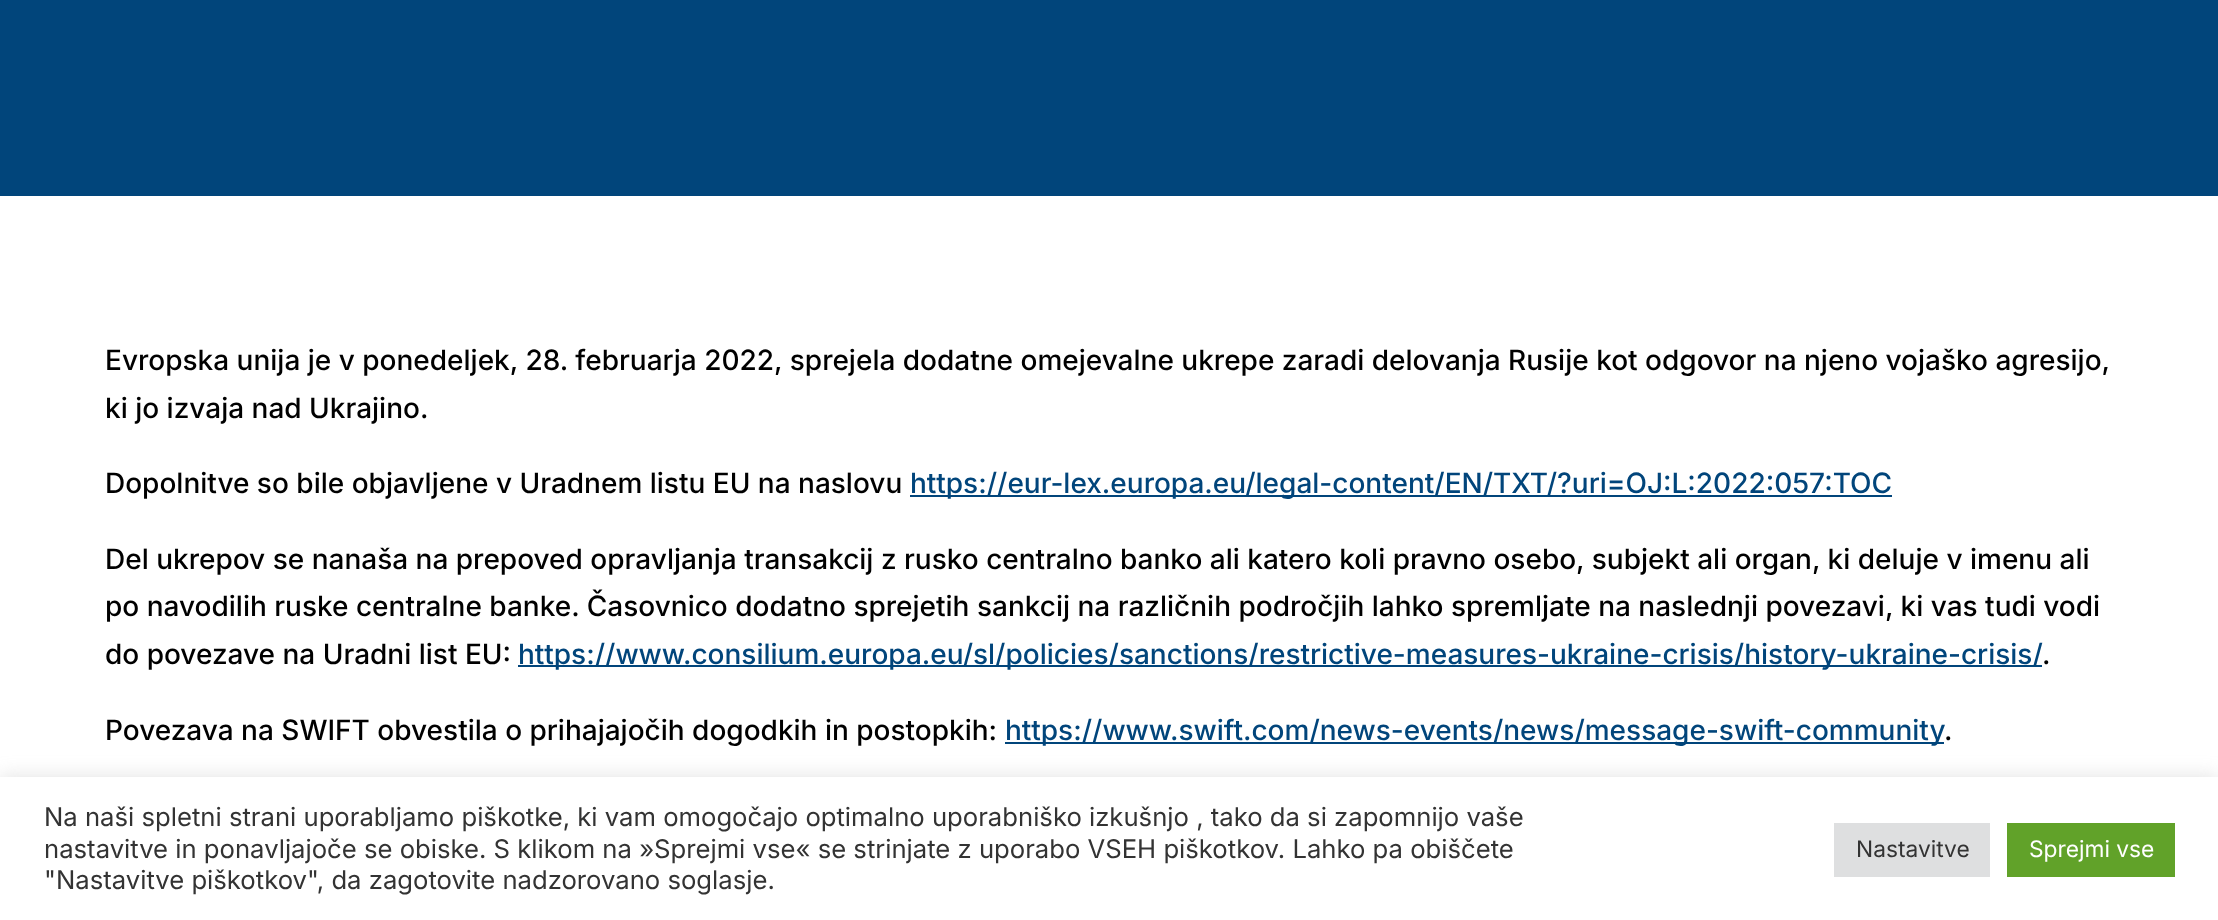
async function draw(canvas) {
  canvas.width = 2218
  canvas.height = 920
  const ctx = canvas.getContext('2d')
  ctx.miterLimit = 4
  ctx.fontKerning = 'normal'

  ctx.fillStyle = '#fff'
  ctx.fillRect(0, 0, 2218, 920)
  ctx.fillStyle = '#01457b'
  ctx.fillRect(0, 0, 2218, 196)
  ctx.font = '500 28px Inter'
  ctx.fillStyle = '#000'
  ctx.fillText('Evropska unija je v ponedeljek, 28. februarja 2022, sprejela dodatne omejevalne ukrepe zaradi delovanja Rusije kot odgovor na njeno vojaško agresijo,', 105, 370)
  ctx.fillText('ki jo izvaja nad Ukrajino.', 105, 418)
  ctx.fillText('Dopolnitve so bile objavljene v Uradnem listu EU na naslovu', 105, 493)
  ctx.fillStyle = '#01457b'
  ctx.fillRect(910, 495, 982, 2)
  ctx.fillText('https://eur-lex.europa.eu/legal-content/EN/TXT/?uri=OJ:L:2022:057:TOC', 910, 493)
  ctx.fillStyle = '#000'
  ctx.fillText('Del ukrepov se nanaša na prepoved opravljanja transakcij z rusko centralno banko ali katero koli pravno osebo, subjekt ali organ, ki deluje v imenu ali', 105, 569)
  ctx.fillText('po navodilih ruske centralne banke. Časovnico dodatno sprejetih sankcij na različnih področjih lahko spremljate na naslednji povezavi, ki vas tudi vodi', 105, 616)
  ctx.fillText('do povezave na Uradni list EU:', 105, 664)
  ctx.fillStyle = '#01457b'
  ctx.fillRect(518, 665, 1524, 2)
  ctx.fillText('https://www.consilium.europa.eu/sl/policies/sanctions/restrictive-measures-ukraine-crisis/history-ukraine-crisis/', 518, 664)
  ctx.fillStyle = '#000'
  ctx.fillText('.', 2042, 664)
  ctx.fillText('Povezava na SWIFT obvestila o prihajajočih dogodkih in postopkih:', 105, 740)
  ctx.fillStyle = '#01457b'
  ctx.fillRect(1005, 742, 939, 2)
  ctx.fillText('https://www.swift.com/news-events/news/message-swift-community', 1005, 740)
  ctx.fillStyle = '#000'
  ctx.fillText('.', 1944, 740)
  ctx.fillStyle = '#acabab4d'
  ctx.filter = 'blur(9px)'
  ctx.beginPath()
  ctx.rect(0, 775, 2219, 144)
  ctx.fill()
  ctx.filter = 'none'
  ctx.fillStyle = '#fff'
  ctx.fillRect(0, 777, 2218, 143)
  ctx.font = '25.67px Inter'
  ctx.fillStyle = '#333'
  ctx.fillText('Na naši spletni strani uporabljamo piškotke, ki vam omogočajo optimalno uporabniško izkušnjo , tako da si zapomnijo vaše', 44, 826)
  ctx.fillText('nastavitve in ponavljajoče se obiske. S klikom na »Sprejmi vse« se strinjate z uporabo VSEH piškotkov. Lahko pa obiščete', 44, 858)
  ctx.fillText('"Nastavitve piškotkov", da zagotovite nadzorovano soglasje.', 44, 889)
  ctx.fillStyle = '#dedfe0'
  ctx.fillRect(1834, 823, 156, 54)
  ctx.font = '22.75px Inter'
  ctx.fillStyle = '#333'
  ctx.fillText('Nastavitve', 1856, 857)
  ctx.fillStyle = '#61a229'
  ctx.fillRect(2007, 823, 168, 54)
  ctx.fillStyle = '#fff'
  ctx.fillText('Sprejmi vse', 2029, 857)
}

draw(document.querySelector('canvas'))
